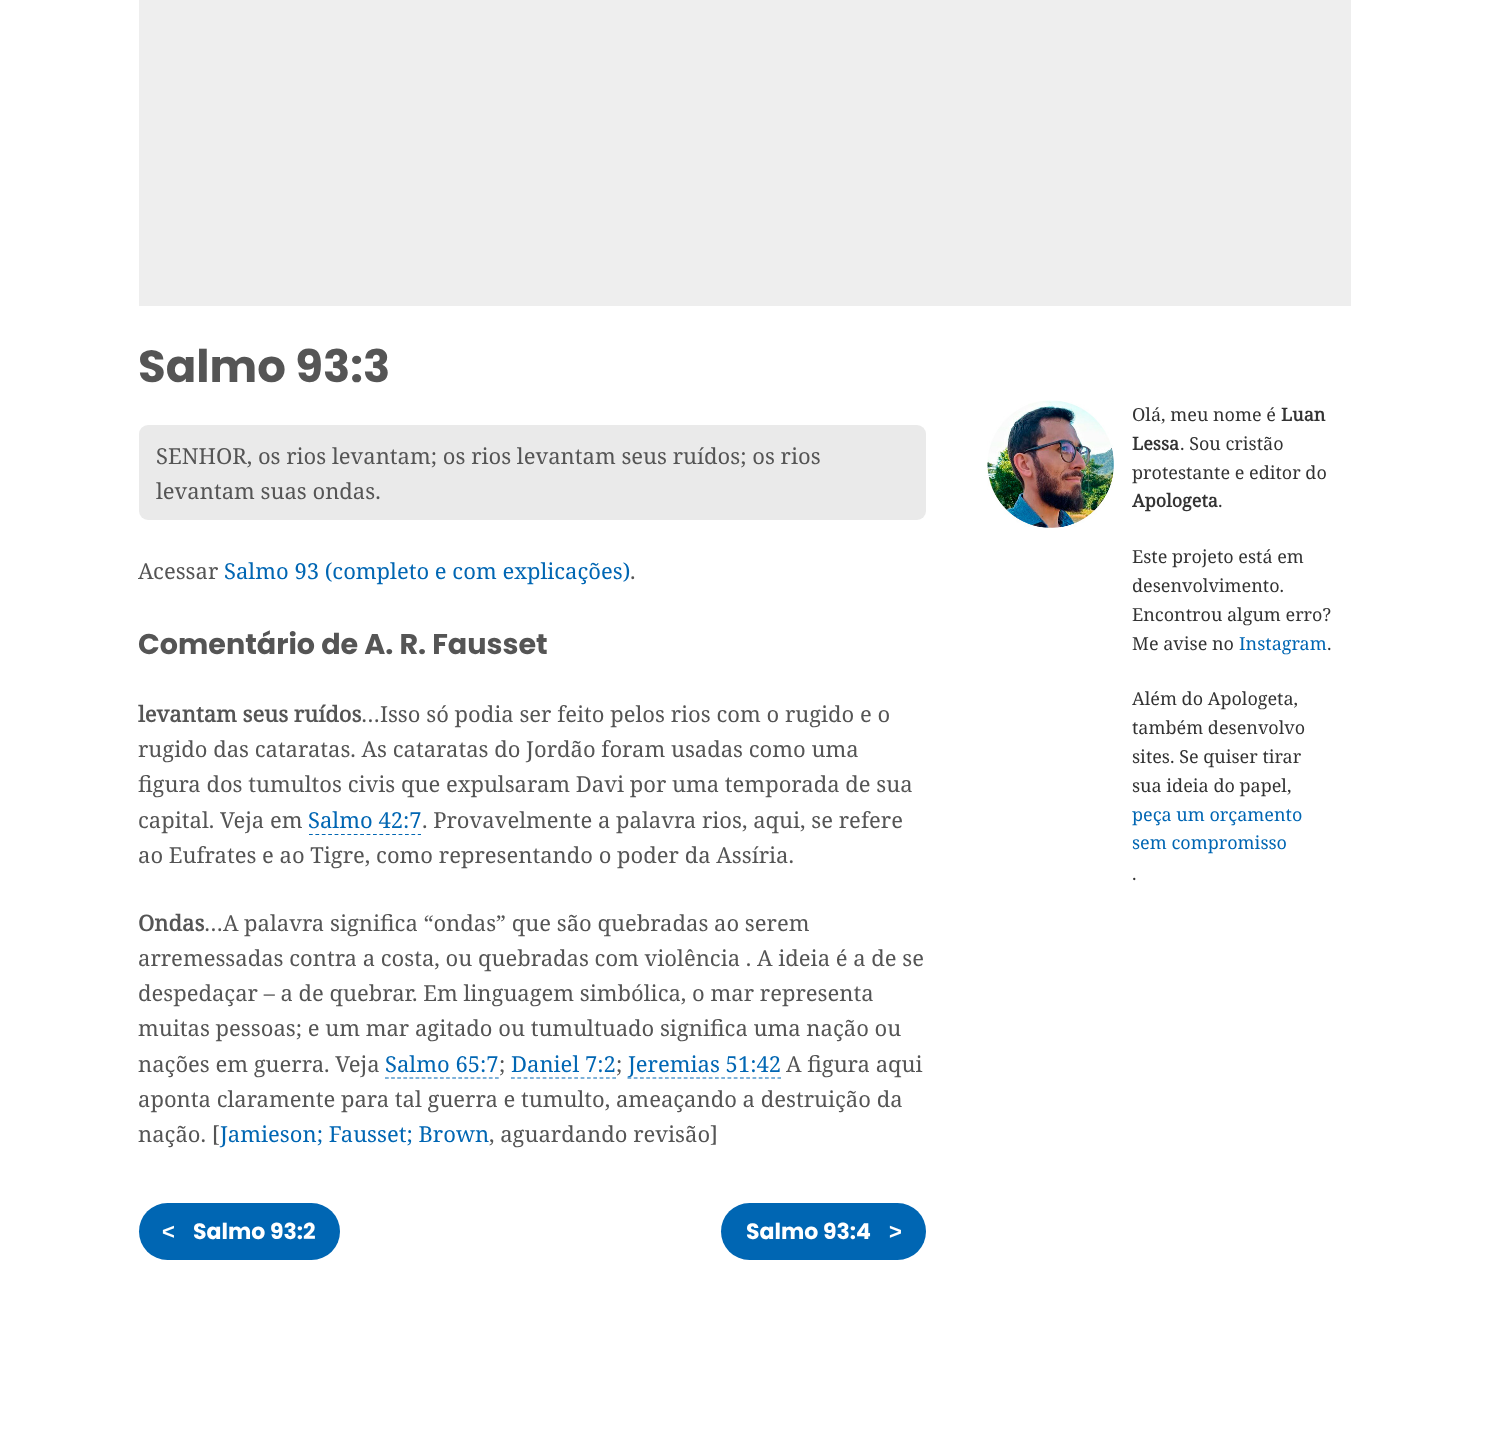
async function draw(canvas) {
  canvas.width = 1488
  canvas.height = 1440
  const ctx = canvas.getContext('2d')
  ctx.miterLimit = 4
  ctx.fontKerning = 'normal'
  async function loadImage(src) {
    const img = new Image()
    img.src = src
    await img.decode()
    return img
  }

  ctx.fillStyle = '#fff'
  ctx.fillRect(0, 0, 1488, 1440)
  ctx.fillStyle = '#eee'
  ctx.fillRect(139, 0, 1212, 306)
  ctx.font = 'bold 45px Poppins'
  ctx.fillStyle = '#555'
  ctx.fillText('Salmo 93:3', 138, 382)
  ctx.fillStyle = '#eaeaea'
  ctx.beginPath()
  ctx.roundRect(139, 425, 787, 95, 9)
  ctx.fill()
  ctx.font = '22px Noto Serif'
  ctx.fillStyle = '#555'
  ctx.fillText('SENHOR, os rios levantam; os rios levantam seus ruídos; os rios', 156, 464)
  ctx.fillText('levantam suas ondas.', 156, 499)
  ctx.fillText('Acessar', 138, 579)
  ctx.fillStyle = '#0066b3'
  ctx.fillText('Salmo 93 (completo e com explicações)', 224, 579)
  ctx.fillStyle = '#555'
  ctx.fillText('.', 630, 579)
  ctx.font = 'bold 28.6px Poppins'
  ctx.fillText('Comentário de A. R. Fausset', 138, 654)
  ctx.font = 'bold 22px Noto Serif'
  ctx.fillText('levantam seus ruídos', 138, 722)
  ctx.font = '22px Noto Serif'
  ctx.fillText('…Isso só podia ser feito pelos rios com o rugido e o', 361, 722)
  ctx.fillText('rugido das cataratas. As cataratas do Jordão foram usadas como uma', 138, 757)
  ctx.fillText('figura dos tumultos civis que expulsaram Davi por uma temporada de sua', 138, 792)
  ctx.fillText('capital. Veja em', 138, 828)
  ctx.fillStyle = '#0066b3'
  ctx.fillText('Salmo 42:7', 308, 828)
  ctx.beginPath()
  ctx.moveTo(309, 834.5)
  ctx.lineTo(421, 834.5)
  ctx.strokeStyle = '#0066b3'
  ctx.lineWidth = 1.2
  ctx.setLineDash([3.75, 2.65])
  ctx.stroke()
  ctx.fillStyle = '#555'
  ctx.fillText('. Provavelmente a palavra rios, aqui, se refere', 422, 828)
  ctx.fillText('ao Eufrates e ao Tigre, como representando o poder da Assíria.', 138, 863)
  ctx.font = 'bold 22px Noto Serif'
  ctx.fillText('Ondas', 138, 931)
  ctx.font = '22px Noto Serif'
  ctx.fillText('…A palavra significa “ondas” que são quebradas ao serem', 204, 931)
  ctx.fillText('arremessadas contra a costa, ou quebradas com violência . A ideia é a de se', 138, 966)
  ctx.fillText('despedaçar – a de quebrar. Em linguagem simbólica, o mar representa', 138, 1001)
  ctx.fillText('muitas pessoas; e um mar agitado ou tumultuado significa uma nação ou', 138, 1036)
  ctx.fillText('nações em guerra. Veja', 138, 1072)
  ctx.fillStyle = '#0066b3'
  ctx.fillText('Salmo 65:7', 385, 1072)
  ctx.beginPath()
  ctx.moveTo(385, 1078)
  ctx.lineTo(499, 1078)
  ctx.setLineDash([3.75, 2.36])
  ctx.stroke()
  ctx.fillStyle = '#555'
  ctx.fillText(';', 499, 1072)
  ctx.fillStyle = '#0066b3'
  ctx.fillText('Daniel 7:2', 511, 1072)
  ctx.beginPath()
  ctx.moveTo(511, 1078)
  ctx.lineTo(616, 1078)
  ctx.setLineDash([3.75, 2.58])
  ctx.stroke()
  ctx.fillStyle = '#555'
  ctx.fillText(';', 616, 1072)
  ctx.beginPath()
  ctx.moveTo(627.5, 1078)
  ctx.lineTo(781, 1078)
  ctx.setLineDash([3.75, 2.5])
  ctx.stroke()
  ctx.fillStyle = '#0066b3'
  ctx.fillText('Jeremias 51:42', 628, 1072)
  ctx.fillStyle = '#555'
  ctx.fillText('A figura aqui', 786, 1072)
  ctx.fillText('aponta claramente para tal guerra e tumulto, ameaçando a destruição da', 138, 1107)
  ctx.fillText('nação. [', 138, 1142)
  ctx.fillStyle = '#0066b3'
  ctx.fillText('Jamieson; Fausset; Brown', 220, 1142)
  ctx.fillStyle = '#555'
  ctx.fillText(', aguardando revisão]', 489, 1142)
  ctx.fillStyle = '#0066b3'
  ctx.beginPath()
  ctx.roundRect(139, 1203, 201, 57, 28.5)
  ctx.fill()
  ctx.font = 'bold 22px Liberation Sans'
  ctx.fillStyle = '#fff'
  ctx.fillText('<', 162, 1239)
  ctx.font = 'bold 22px Poppins'
  ctx.fillText('Salmo 93:2', 193, 1239)
  ctx.fillStyle = '#0066b3'
  ctx.beginPath()
  ctx.roundRect(721, 1203, 205, 57, 28.5)
  ctx.fill()
  ctx.fillStyle = '#fff'
  ctx.fillText('Salmo 93:4', 746, 1239)
  ctx.font = 'bold 22px Liberation Sans'
  ctx.fillText('>', 889, 1239)
  ctx.drawImage(await loadImage('image0.png'), 987, 400, 127, 128)
  ctx.font = '18px Noto Serif'
  ctx.fillStyle = '#333'
  ctx.fillText('Olá, meu nome é', 1132, 421)
  ctx.font = 'bold 18px Noto Serif'
  ctx.fillText('Luan', 1281, 421)
  ctx.fillText('Lessa', 1132, 450)
  ctx.font = '18px Noto Serif'
  ctx.fillText('. Sou cristão', 1180, 450)
  ctx.fillText('protestante e editor do', 1132, 479)
  ctx.font = 'bold 18px Noto Serif'
  ctx.fillText('Apologeta', 1132, 507)
  ctx.font = '18px Noto Serif'
  ctx.fillText('.', 1218, 507)
  ctx.fillText('Este projeto está em', 1132, 563)
  ctx.fillText('desenvolvimento.', 1132, 592)
  ctx.fillText('Encontrou algum erro?', 1132, 621)
  ctx.fillText('Me avise no', 1132, 650)
  ctx.fillStyle = '#0066b3'
  ctx.fillText('Instagram', 1239, 650)
  ctx.fillStyle = '#333'
  ctx.fillText('.', 1327, 650)
  ctx.fillText('Além do Apologeta,', 1132, 705)
  ctx.fillText('também desenvolvo', 1132, 734)
  ctx.fillText('sites. Se quiser tirar', 1132, 763)
  ctx.fillText('sua ideia do papel,', 1132, 792)
  ctx.fillStyle = '#0066b3'
  ctx.fillText('peça um orçamento', 1132, 821)
  ctx.fillText('sem compromisso', 1132, 849)
  ctx.fillStyle = '#333'
  ctx.fillText('.', 1132, 880)
}

draw(document.querySelector('canvas'))
